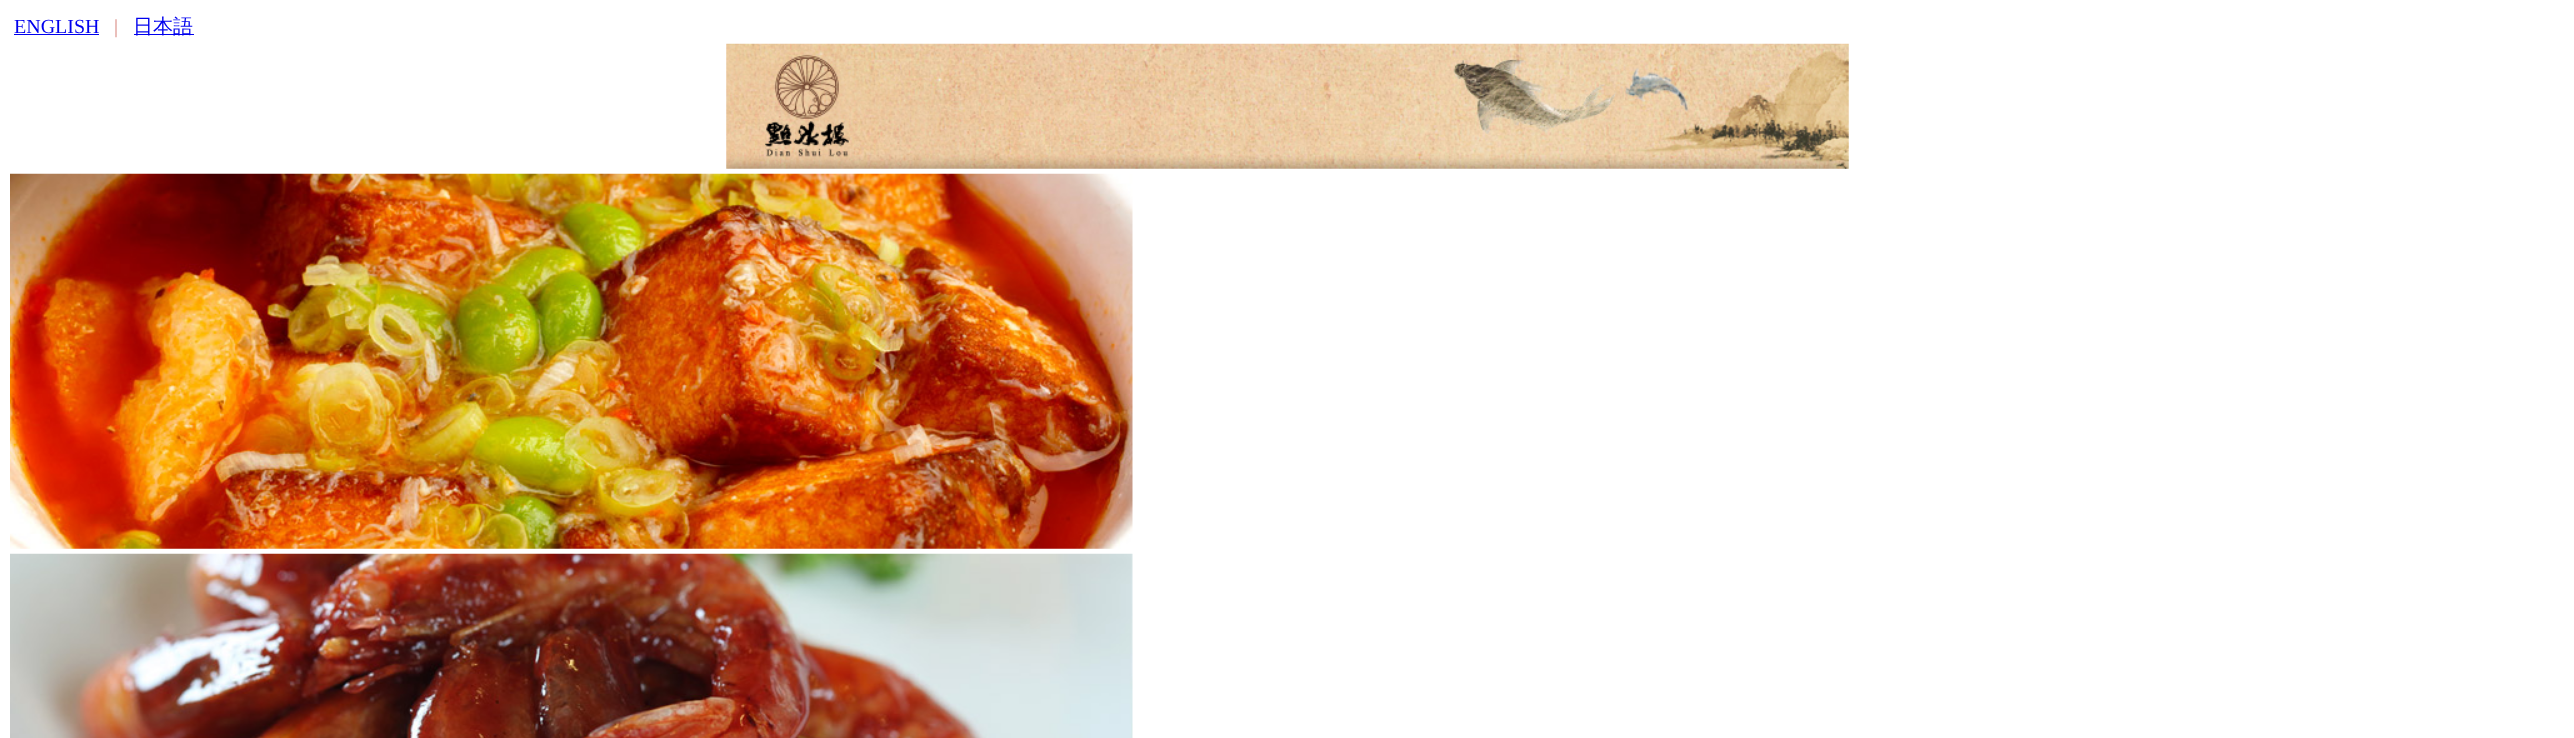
async function draw(canvas) {
  canvas.width = 2574
  canvas.height = 738
  const ctx = canvas.getContext('2d')
  ctx.miterLimit = 4
  ctx.fontKerning = 'normal'
  async function loadImage(src) {
    const img = new Image()
    img.src = src
    await img.decode()
    return img
  }

  ctx.fillStyle = '#fff'
  ctx.fillRect(0, 0, 2574, 738)
  ctx.font = '20px Liberation Serif'
  ctx.fillStyle = '#00e'
  ctx.fillText('ENGLISH', 14, 33)
  ctx.fillRect(14, 34, 85, 1)
  ctx.fillStyle = '#d78780'
  ctx.fillText('|', 114, 33)
  ctx.fillStyle = '#00e'
  ctx.fillRect(134, 34, 60, 1)
  ctx.font = '500 20px WenQuanYi Zen Hei'
  ctx.fillText('日本語', 133, 33)
  ctx.drawImage(await loadImage('image0.png'), 726, 43, 1123, 126)
  ctx.drawImage(await loadImage('image1.png'), 10, 173, 1123, 376)
  ctx.drawImage(await loadImage('image2.png'), 10, 553, 1123, 185)
}

draw(document.querySelector('canvas'))
